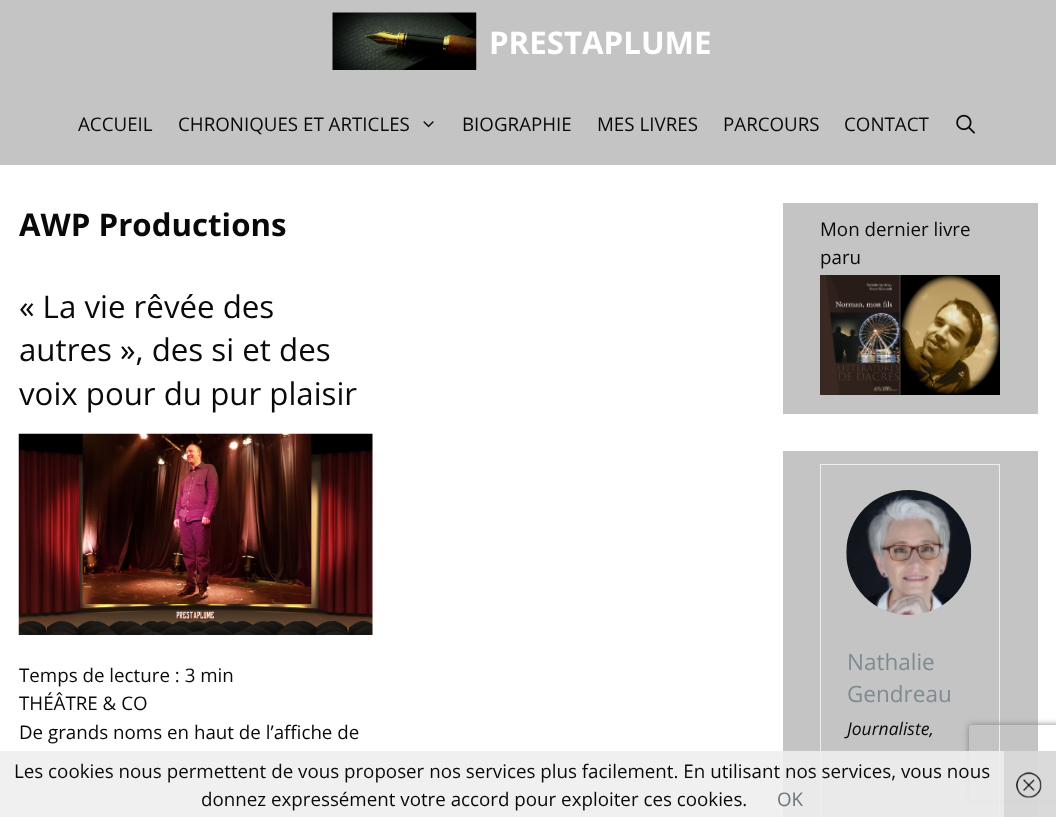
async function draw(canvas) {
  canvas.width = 1056
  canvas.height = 817
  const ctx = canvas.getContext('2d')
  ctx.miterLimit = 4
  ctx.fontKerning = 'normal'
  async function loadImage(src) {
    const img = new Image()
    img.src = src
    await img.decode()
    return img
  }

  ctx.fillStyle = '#c4c4c4'
  ctx.fillRect(0, 0, 1056, 817)
  ctx.drawImage(await loadImage('image0.png'), 332, 12, 145, 58)
  ctx.font = 'bold 31.25px Open Sans'
  ctx.fillStyle = '#fff'
  ctx.fillText('PRESTAPLUME', 489, 54)
  ctx.font = '18.75px Open Sans'
  ctx.fillStyle = '#090909'
  ctx.fillText('ACCUEIL', 78, 131)
  ctx.fillText('CHRONIQUES ET ARTICLES', 178, 131)
  ctx.drawImage(await loadImage('image1.png'), 423, 121, 11, 7)
  ctx.fillText('BIOGRAPHIE', 462, 131)
  ctx.fillText('MES LIVRES', 597, 131)
  ctx.fillText('PARCOURS', 723, 131)
  ctx.fillText('CONTACT', 844, 131)
  ctx.drawImage(await loadImage('image2.png'), 956, 114, 19, 20)
  ctx.fillStyle = '#fff'
  ctx.fillRect(0, 165, 1056, 652)
  ctx.font = 'bold 31.25px Open Sans'
  ctx.fillStyle = '#090909'
  ctx.fillText('AWP Productions', 19, 236)
  ctx.font = '31.25px Open Sans'
  ctx.fillText('« La vie rêvée des', 19, 318)
  ctx.fillText('autres », des si et des', 19, 361)
  ctx.fillText('voix pour du pur plaisir', 19, 405)
  ctx.drawImage(await loadImage('image3.png'), 18, 433, 355, 202)
  ctx.font = '18.75px Open Sans'
  ctx.fillText('Temps de lecture : 3 min', 19, 682)
  ctx.fillText('THÉÂTRE & CO', 19, 710)
  ctx.fillText('De grands noms en haut de l’affiche de', 19, 739)
  ctx.fillStyle = '#c4c4c4'
  ctx.fillRect(783, 203, 255, 211)
  ctx.fillStyle = '#090909'
  ctx.fillText('Mon dernier livre', 820, 236)
  ctx.fillText('paru', 820, 264)
  ctx.drawImage(await loadImage('image4.png'), 820, 275, 180, 120)
  ctx.fillStyle = '#c4c4c4'
  ctx.fillRect(783, 451, 255, 366)
  ctx.strokeStyle = '#eee'
  ctx.strokeRect(820.5, 464.5, 179, 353)
  ctx.drawImage(await loadImage('image5.png'), 846, 490, 126, 125)
  ctx.font = '22.5px Open Sans'
  ctx.fillStyle = '#7d8c92'
  ctx.fillText('Nathalie', 847, 670)
  ctx.fillText('Gendreau', 847, 702)
  ctx.font = 'italic 17.5px Open Sans'
  ctx.fillStyle = '#090909'
  ctx.fillText('Journaliste,', 847, 735)
  ctx.save()
  ctx.beginPath()
  ctx.moveTo(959, 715)
  ctx.lineTo(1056, 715)
  ctx.lineTo(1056, 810)
  ctx.lineTo(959, 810)
  ctx.closePath()
  ctx.moveTo(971.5, 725)
  ctx.lineTo(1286.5, 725)
  ctx.bezierCurveTo(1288, 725, 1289, 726, 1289, 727.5)
  ctx.lineTo(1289, 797.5)
  ctx.bezierCurveTo(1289, 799, 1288, 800, 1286.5, 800)
  ctx.lineTo(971.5, 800)
  ctx.bezierCurveTo(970, 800, 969, 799, 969, 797.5)
  ctx.lineTo(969, 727.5)
  ctx.bezierCurveTo(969, 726, 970, 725, 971.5, 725)
  ctx.closePath()
  ctx.clip('evenodd')
  ctx.fillStyle = '#808080'
  ctx.filter = 'blur(3px)'
  ctx.beginPath()
  ctx.roundRect(969, 725, 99, 75, 2.5)
  ctx.fill()
  ctx.filter = 'none'
  ctx.restore()
  ctx.fillStyle = '#eeeeeee6'
  ctx.fillRect(0, 751, 1056, 66)
  ctx.font = '18.75px Open Sans'
  ctx.fillStyle = '#090909'
  ctx.fillText('Les cookies nous permettent de vous proposer nos services plus facilement. En utilisant nos services, vous nous', 14, 778)
  ctx.fillText('donnez expressément votre accord pour exploiter ces cookies.', 201, 806)
  ctx.fillStyle = '#68757a'
  ctx.fillText('OK', 777, 806)
  ctx.fillStyle = '#cccccc99'
  ctx.fillRect(1004, 751, 52, 66)
  ctx.drawImage(await loadImage('image6.png'), 1016, 772, 26, 26)
}

draw(document.querySelector('canvas'))
